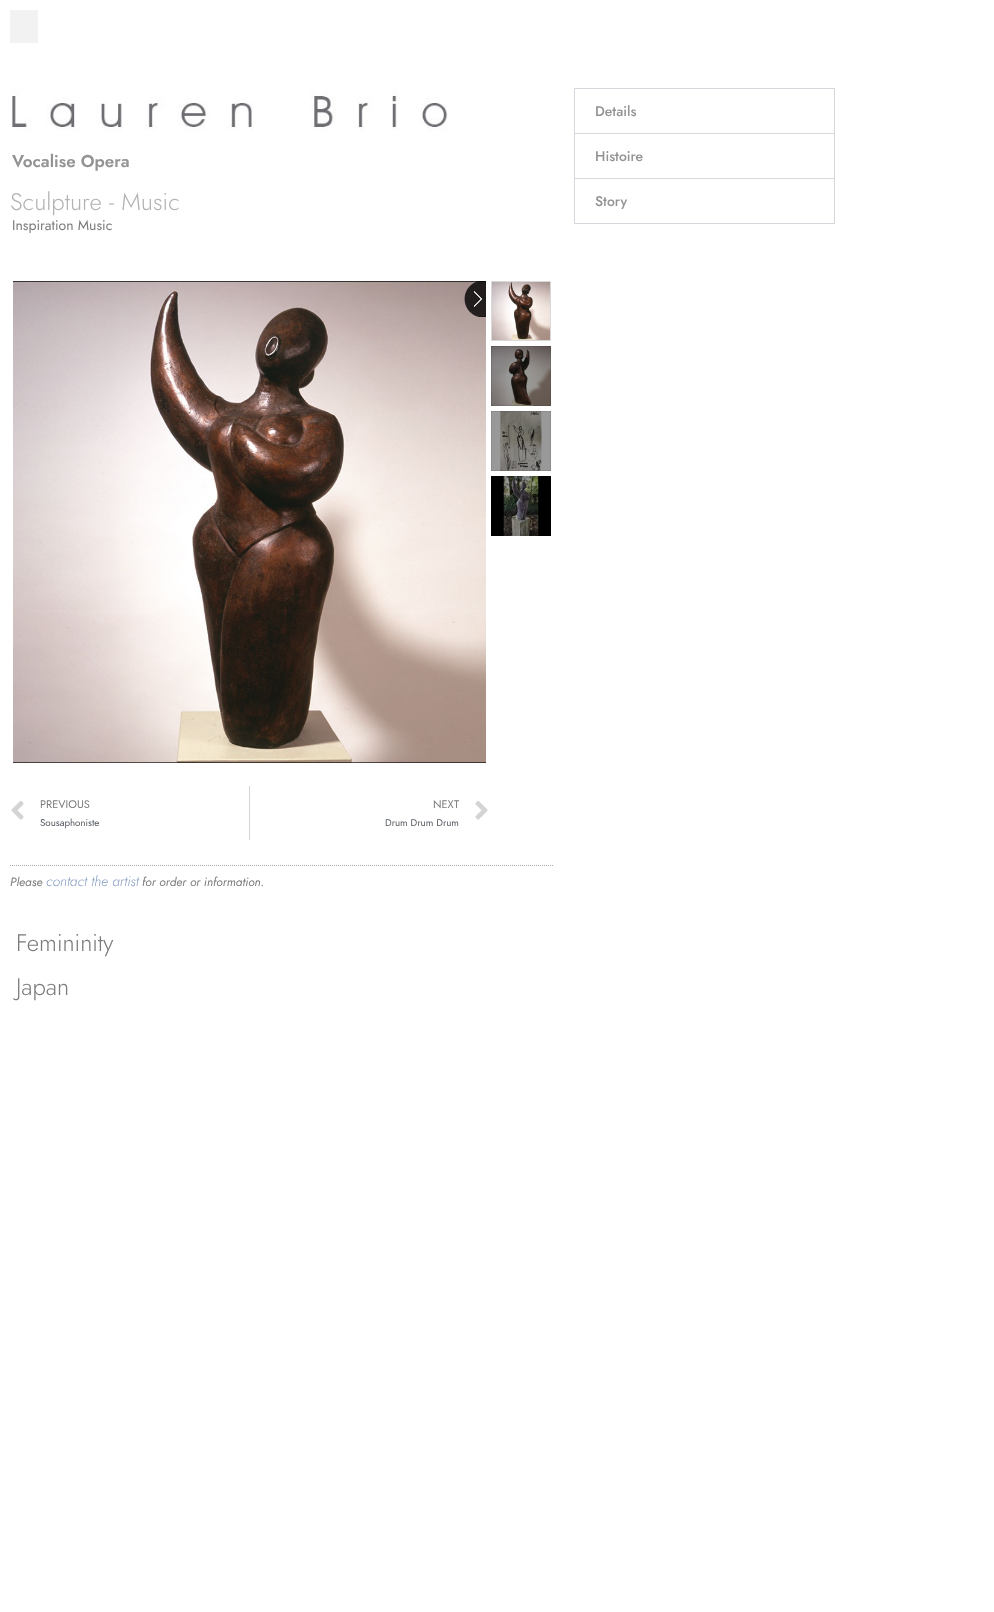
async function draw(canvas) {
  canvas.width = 994
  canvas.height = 1612
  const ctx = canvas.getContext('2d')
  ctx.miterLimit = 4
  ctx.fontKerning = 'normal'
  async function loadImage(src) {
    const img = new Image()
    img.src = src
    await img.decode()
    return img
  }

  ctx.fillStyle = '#fff'
  ctx.fillRect(0, 0, 994, 1612)
  ctx.fillStyle = '#f2f2f2'
  ctx.fillRect(10, 10, 28, 33)
  ctx.drawImage(await loadImage('image0.png'), 12, 90, 436, 41)
  ctx.font = '600 17px Jost'
  ctx.fillStyle = '#939393'
  ctx.fillText('Vocalise Opera', 12, 167)
  ctx.font = '300 24px Jost'
  ctx.fillStyle = '#b3b3b3'
  ctx.fillText('Sculpture - Music', 10, 210)
  ctx.font = '14px Jost'
  ctx.fillStyle = '#7a7a7a'
  ctx.fillText('Inspiration Music', 12, 230)
  ctx.drawImage(await loadImage('image1.png'), 13, 281, 473, 482)
  ctx.drawImage(await loadImage('image2.png'), 464, 281, 22, 36)
  ctx.drawImage(await loadImage('image3.png'), 492, 282, 58, 58)
  ctx.strokeStyle = '#d9d9d9'
  ctx.strokeRect(491.5, 281.5, 59, 59)
  ctx.drawImage(await loadImage('image4.png'), 491, 346, 60, 60)
  ctx.drawImage(await loadImage('image5.png'), 491, 411, 60, 60)
  ctx.drawImage(await loadImage('image6.png'), 491, 476, 60, 60)
  ctx.drawImage(await loadImage('image7.png'), 11, 801, 13, 19)
  ctx.font = '11px Jost'
  ctx.fillText('PREVIOUS', 40, 808)
  ctx.font = '9.75px Jost'
  ctx.fillStyle = '#54595f'
  ctx.fillText('Sousaphoniste', 40, 826)
  ctx.fillStyle = '#d4d4d4'
  ctx.fillRect(249, 786, 1, 54)
  ctx.font = '11px Jost'
  ctx.fillStyle = '#7a7a7a'
  ctx.fillText('NEXT', 433, 808)
  ctx.font = '9.75px Jost'
  ctx.fillStyle = '#54595f'
  ctx.fillText('Drum Drum Drum', 385, 826)
  ctx.drawImage(await loadImage('image8.png'), 475, 801, 13, 19)
  ctx.beginPath()
  ctx.moveTo(10, 865.5)
  ctx.lineTo(554, 865.5)
  ctx.strokeStyle = '#aaa7a7'
  ctx.setLineDash([1, 1])
  ctx.stroke()
  ctx.font = 'italic 12px Jost'
  ctx.fillStyle = '#7a7a7a'
  ctx.fillText('Please', 10, 886)
  ctx.font = 'italic 300 14px Jost'
  ctx.fillStyle = '#859cc2'
  ctx.fillText('contact the artist', 46, 886)
  ctx.font = 'italic 12px Jost'
  ctx.fillStyle = '#7a7a7a'
  ctx.fillText('for order or information.', 142, 886)
  ctx.font = '300 24px Jost'
  ctx.fillText('Femininity', 16, 951)
  ctx.fillText('Japan', 16, 995)
  ctx.strokeStyle = '#d5d8dc'
  ctx.setLineDash([])
  ctx.strokeRect(574.5, 88.5, 260, 45)
  ctx.font = '500 14px Jost'
  ctx.fillStyle = '#939393'
  ctx.fillText('Details', 595, 116)
  ctx.fillStyle = '#d5d8dc'
  ctx.fillRect(834, 134, 1, 90)
  ctx.fillRect(574, 178, 261, 1)
  ctx.fillRect(574, 134, 1, 45)
  ctx.fillStyle = '#939393'
  ctx.fillText('Histoire', 595, 161)
  ctx.fillStyle = '#d5d8dc'
  ctx.fillRect(574, 223, 261, 1)
  ctx.fillRect(574, 179, 1, 45)
  ctx.fillStyle = '#939393'
  ctx.fillText('Story', 595, 206)
}

draw(document.querySelector('canvas'))
